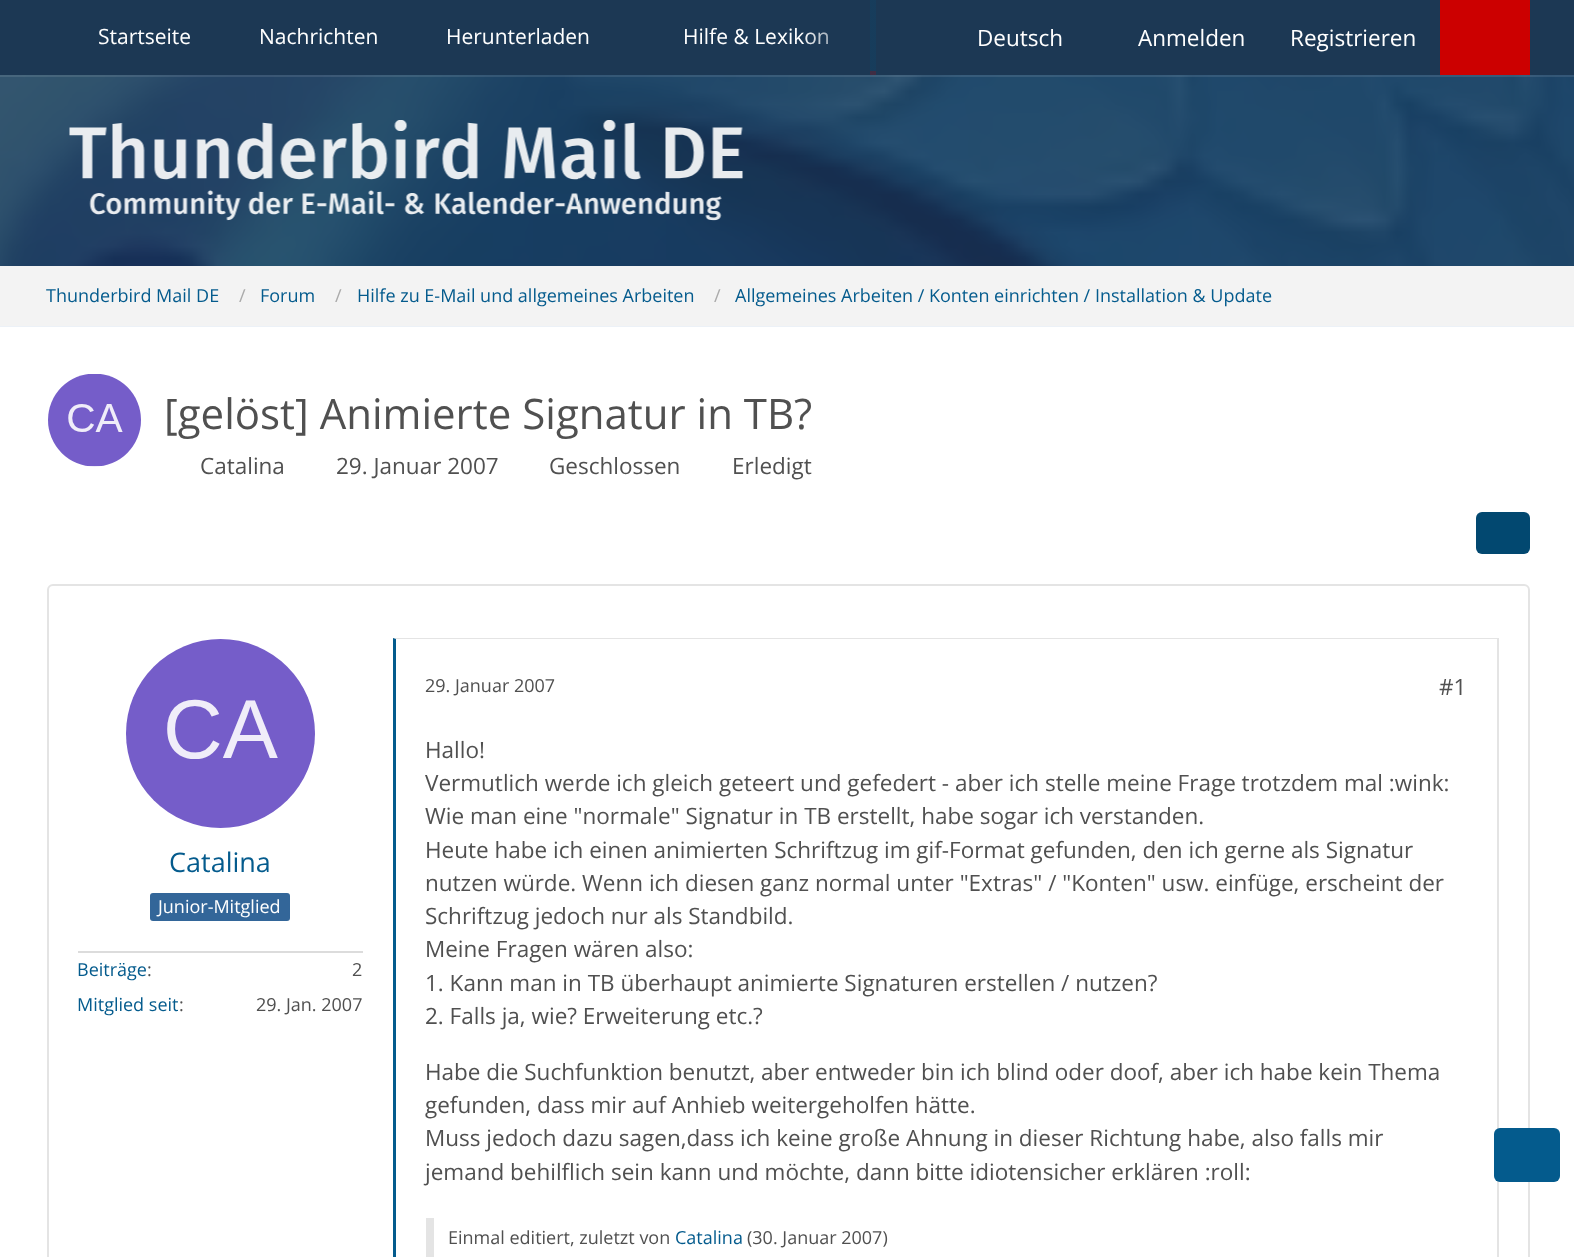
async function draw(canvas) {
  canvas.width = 1574
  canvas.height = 1257
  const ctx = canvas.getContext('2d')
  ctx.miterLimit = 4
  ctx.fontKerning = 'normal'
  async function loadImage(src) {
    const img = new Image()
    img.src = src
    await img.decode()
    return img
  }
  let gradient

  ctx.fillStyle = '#f3f3f3'
  ctx.fillRect(0, 0, 1574, 1257)
  ctx.drawImage(await loadImage('image0.png'), 0, 75, 1574, 191)
  ctx.fillStyle = '#1c3854cc'
  ctx.fillRect(0, 75, 1574, 191)
  ctx.fillStyle = '#ffffff1a'
  ctx.fillRect(0, 75, 1574, 2)
  ctx.fillStyle = '#1c3854'
  ctx.fillRect(0, 0, 1574, 75)
  ctx.font = '21px Open Sans'
  ctx.fillStyle = '#fff'
  ctx.fillText('Startseite', 98, 44)
  ctx.fillText('Nachrichten', 259, 44)
  ctx.fillText('Herunterladen', 446, 44)
  ctx.fillText('Hilfe & Lexikon', 683, 44)
  ctx.fillStyle = '#034e79'
  ctx.fillRect(870, 0, 6, 75)
  ctx.fillStyle = '#c00'
  ctx.fillRect(870, 71, 6, 4)
  gradient = ctx.createLinearGradient(801, 38, 876, 38)
  gradient.addColorStop(0, '#1c385400')
  gradient.addColorStop(0.75, '#1c3854cc')
  ctx.fillStyle = gradient
  ctx.fillRect(803, 0, 73, 75)
  ctx.font = '22.5px Open Sans'
  ctx.fillStyle = '#fff'
  ctx.fillText('Deutsch', 977, 46)
  ctx.fillText('Anmelden', 1138, 46)
  ctx.fillText('Registrieren', 1290, 46)
  ctx.fillStyle = '#c00'
  ctx.fillRect(1440, 0, 90, 75)
  ctx.drawImage(await loadImage('image1.png'), 69, 120, 674, 101)
  ctx.fillStyle = '#ecf1f7'
  ctx.fillRect(0, 326, 1574, 1)
  ctx.font = '18px Open Sans'
  ctx.fillStyle = '#045b8d'
  ctx.fillText('Thunderbird Mail DE', 46, 302)
  ctx.fillStyle = '#aaa'
  ctx.fillText('/', 239, 302)
  ctx.fillStyle = '#045b8d'
  ctx.fillText('Forum', 260, 302)
  ctx.fillStyle = '#aaa'
  ctx.fillText('/', 335, 302)
  ctx.fillStyle = '#045b8d'
  ctx.fillText('Hilfe zu E-Mail und allgemeines Arbeiten', 357, 302)
  ctx.fillStyle = '#aaa'
  ctx.fillText('/', 714, 302)
  ctx.fillStyle = '#045b8d'
  ctx.fillText('Allgemeines Arbeiten / Konten einrichten / Installation & Update', 735, 302)
  ctx.fillStyle = '#fff'
  ctx.fillRect(0, 327, 1574, 930)
  ctx.drawImage(await loadImage('image2.png'), 48, 374, 93, 93)
  ctx.font = '42px Open Sans'
  ctx.fillStyle = '#505050'
  ctx.fillText('[gelöst] Animierte Signatur in TB?', 164, 429)
  ctx.font = '22.5px Open Sans'
  ctx.fillText('Catalina', 200, 474)
  ctx.fillText('29. Januar 2007', 336, 474)
  ctx.fillText('Geschlossen', 549, 474)
  ctx.fillText('Erledigt', 732, 474)
  ctx.fillStyle = '#024870'
  ctx.beginPath()
  ctx.roundRect(1476, 512, 54, 42, 6)
  ctx.fill()
  ctx.beginPath()
  ctx.roundRect(48, 585, 1481, 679, 5)
  ctx.strokeStyle = '#e4e4e4'
  ctx.lineWidth = 2
  ctx.stroke()
  ctx.drawImage(await loadImage('image3.png'), 126, 639, 189, 189)
  ctx.font = '27px Open Sans'
  ctx.fillStyle = '#045b8d'
  ctx.fillText('Catalina', 169, 872)
  ctx.fillStyle = '#369'
  ctx.beginPath()
  ctx.roundRect(150, 893, 140, 28, 3)
  ctx.fill()
  ctx.font = '18px Open Sans'
  ctx.fillStyle = '#fff'
  ctx.fillText('Junior-Mitglied', 158, 913)
  ctx.fillStyle = '#dcdcdc'
  ctx.fillRect(78, 951, 285, 2)
  ctx.fillStyle = '#045b8d'
  ctx.fillText('Beiträge', 77, 976)
  ctx.fillStyle = '#505050'
  ctx.fillText(':', 147, 976)
  ctx.fillText('2', 352, 976)
  ctx.fillStyle = '#045b8d'
  ctx.fillText('Mitglied seit', 77, 1011)
  ctx.fillStyle = '#505050'
  ctx.fillText(':', 179, 1011)
  ctx.fillText('29. Jan. 2007', 256, 1011)
  ctx.fillStyle = '#e4e4e4'
  ctx.beginPath()
  ctx.moveTo(393, 638)
  ctx.lineTo(1498, 638)
  ctx.lineTo(1497, 639)
  ctx.lineTo(396, 639)
  ctx.closePath()
  ctx.fill()
  ctx.fillRect(1497, 638, 2, 619)
  ctx.fillStyle = '#045b8d'
  ctx.beginPath()
  ctx.moveTo(393, 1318)
  ctx.lineTo(393, 638)
  ctx.lineTo(396, 639)
  ctx.lineTo(396, 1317)
  ctx.closePath()
  ctx.fill()
  ctx.fillStyle = '#505050'
  ctx.fillText('29. Januar 2007', 425, 692)
  ctx.font = '22.5px Open Sans'
  ctx.fillText('#1', 1439, 695)
  ctx.fillText('Hallo!', 425, 758)
  ctx.fillText('Vermutlich werde ich gleich geteert und gefedert - aber ich stelle meine Frage trotzdem mal :wink:', 425, 791)
  ctx.fillText('Wie man eine "normale" Signatur in TB erstellt, habe sogar ich verstanden.', 425, 824)
  ctx.fillText('Heute habe ich einen animierten Schriftzug im gif-Format gefunden, den ich gerne als Signatur', 425, 858)
  ctx.fillText('nutzen würde. Wenn ich diesen ganz normal unter "Extras" / "Konten" usw. einfüge, erscheint der', 425, 891)
  ctx.fillText('Schriftzug jedoch nur als Standbild.', 425, 924)
  ctx.fillText('Meine Fragen wären also:', 425, 957)
  ctx.fillText('1. Kann man in TB überhaupt animierte Signaturen erstellen / nutzen?', 425, 991)
  ctx.fillText('2. Falls ja, wie? Erweiterung etc.?', 425, 1024)
  ctx.fillText('Habe die Suchfunktion benutzt, aber entweder bin ich blind oder doof, aber ich habe kein Thema', 425, 1080)
  ctx.fillText('gefunden, dass mir auf Anhieb weitergeholfen hätte.', 425, 1113)
  ctx.fillText('Muss jedoch dazu sagen,dass ich keine große Ahnung in dieser Richtung habe, also falls mir', 425, 1146)
  ctx.fillText('jemand behilflich sein kann und möchte, dann bitte idiotensicher erklären :roll:', 425, 1180)
  ctx.fillStyle = '#e4e4e4'
  ctx.fillRect(426, 1218, 8, 39)
  ctx.font = '18px Open Sans'
  ctx.fillStyle = '#505050'
  ctx.fillText('Einmal editiert, zuletzt von', 448, 1244)
  ctx.fillStyle = '#045b8d'
  ctx.fillText('Catalina', 675, 1244)
  ctx.fillStyle = '#505050'
  ctx.fillText('(30. Januar 2007)', 747, 1244)
  ctx.fillStyle = '#045b8d'
  ctx.beginPath()
  ctx.roundRect(1494, 1128, 66, 54, 6)
  ctx.fill()
}

draw(document.querySelector('canvas'))
